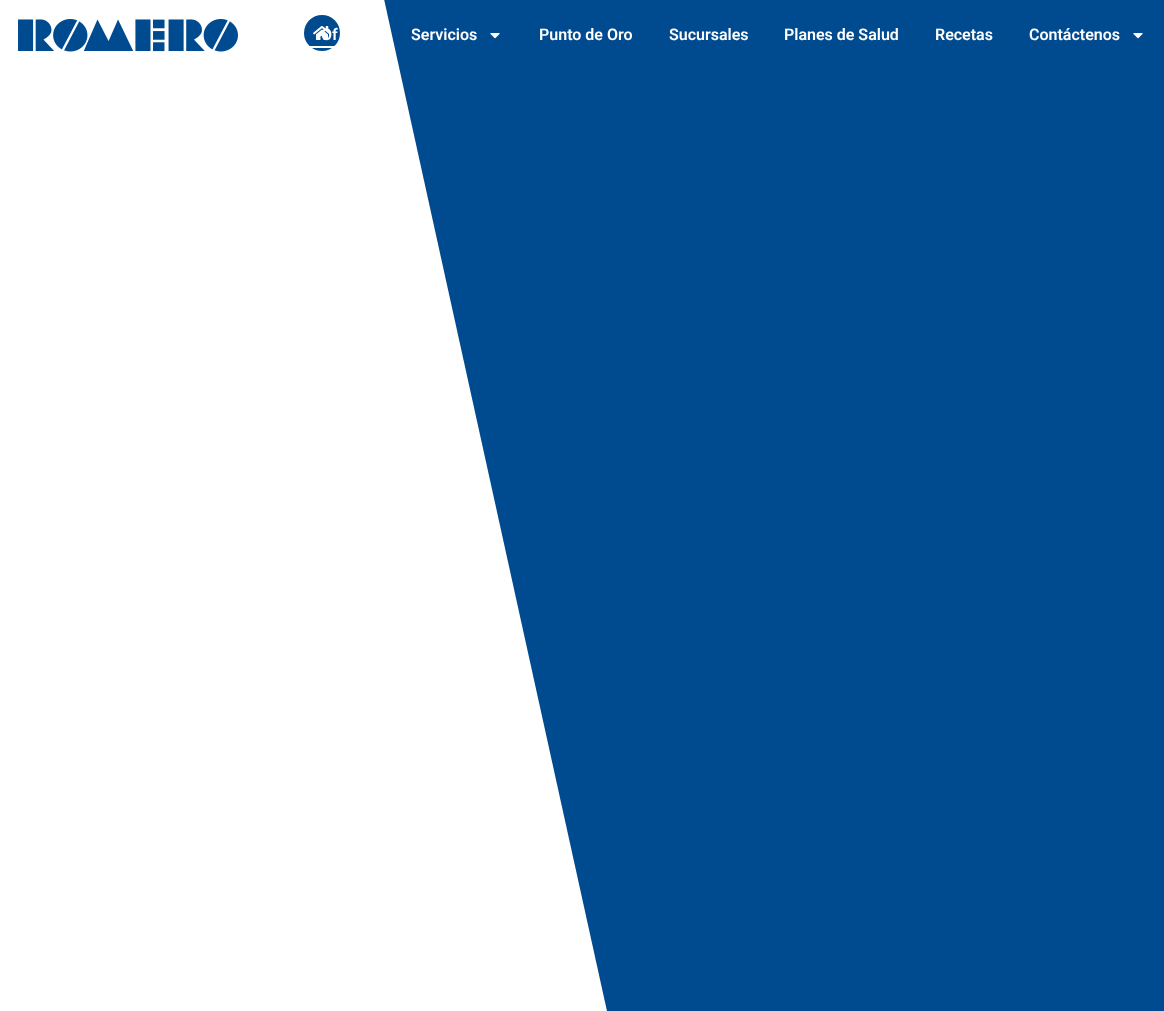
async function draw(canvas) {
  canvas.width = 1164
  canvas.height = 1011
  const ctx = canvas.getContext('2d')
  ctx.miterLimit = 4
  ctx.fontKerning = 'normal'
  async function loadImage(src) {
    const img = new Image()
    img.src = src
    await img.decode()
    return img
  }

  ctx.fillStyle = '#fff'
  ctx.fillRect(0, 0, 1164, 1011)
  ctx.fillStyle = '#004b8f'
  ctx.beginPath()
  ctx.moveTo(1164, 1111)
  ctx.lineTo(1164, -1)
  ctx.lineTo(384, -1)
  ctx.lineTo(629, 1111)
  ctx.closePath()
  ctx.fill()
  ctx.drawImage(await loadImage('image0.png'), 18, 19, 220, 33)
  ctx.beginPath()
  ctx.arc(322, 33, 18, 0, 2 * Math.PI)
  ctx.fill()
  ctx.drawImage(await loadImage('image1.png'), 313, 26, 18, 14)
  ctx.font = '600 16px Roboto'
  ctx.fillStyle = '#fff'
  ctx.fillText('Of', 321, 40)
  ctx.fillRect(303, 46, 32, 2)
  ctx.fillText('Servicios', 411, 40)
  ctx.drawImage(await loadImage('image2.png'), 490, 33, 10, 6)
  ctx.fillText('Punto de Oro', 539, 40)
  ctx.fillText('Sucursales', 669, 40)
  ctx.fillText('Planes de Salud', 784, 40)
  ctx.fillText('Recetas', 935, 40)
  ctx.fillText('Contáctenos', 1029, 40)
  ctx.drawImage(await loadImage('image2.png'), 1133, 33, 10, 6)
}

draw(document.querySelector('canvas'))
